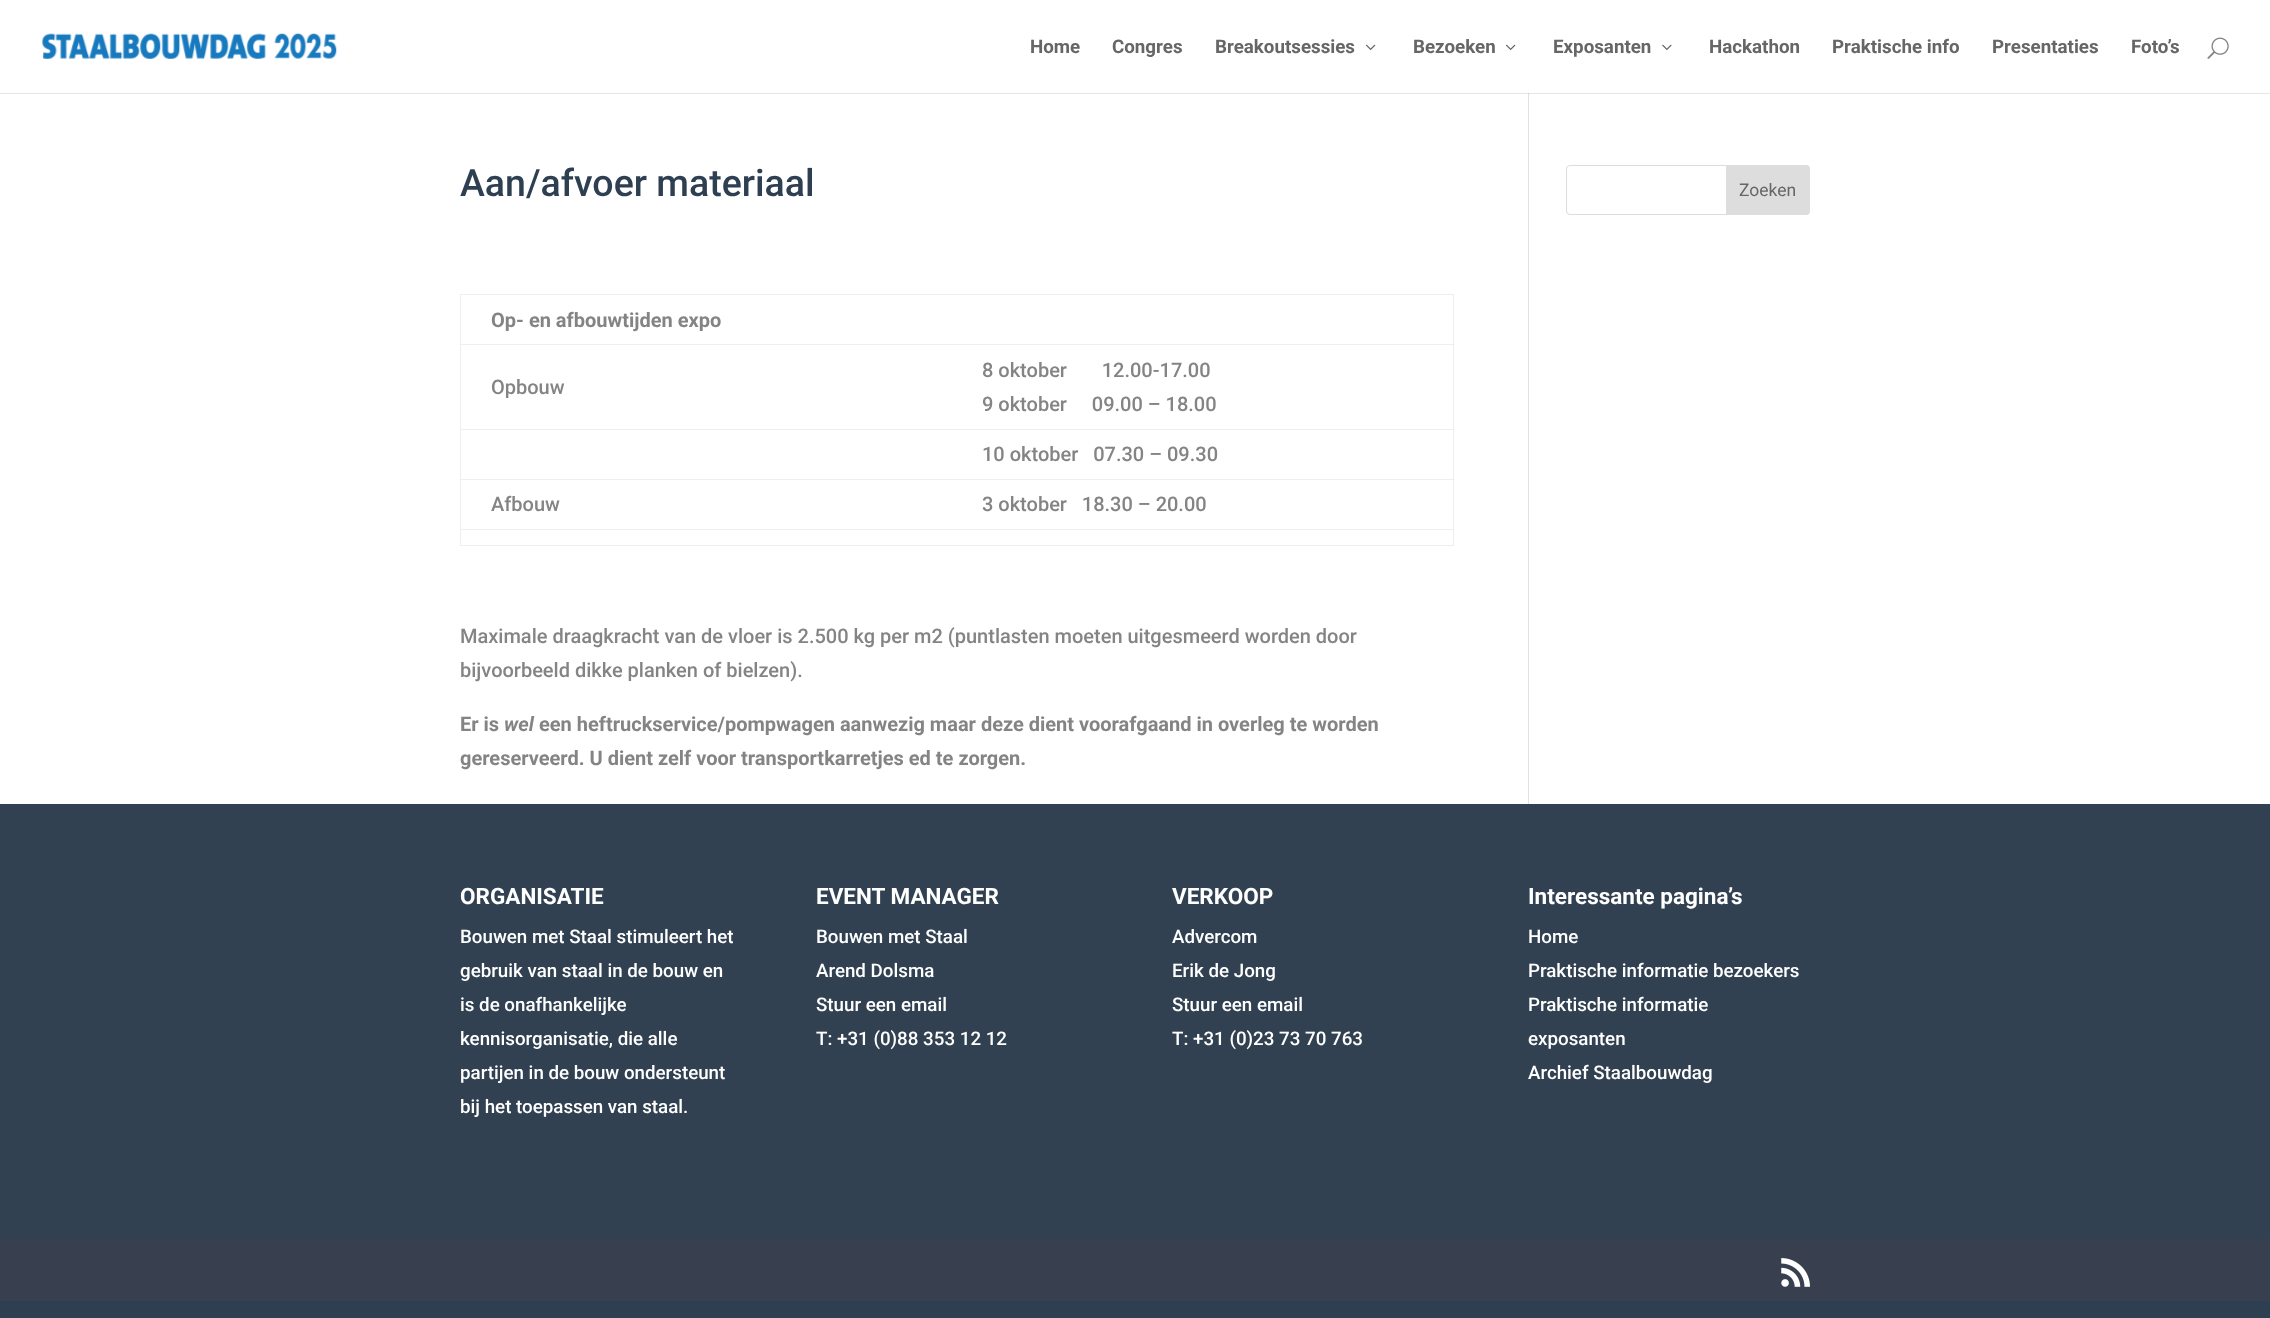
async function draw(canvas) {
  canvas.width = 2270
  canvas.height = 1318
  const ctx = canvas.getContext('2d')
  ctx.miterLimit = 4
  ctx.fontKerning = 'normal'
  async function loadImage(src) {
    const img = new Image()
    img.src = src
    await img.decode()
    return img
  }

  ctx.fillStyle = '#2e3f52'
  ctx.fillRect(0, 0, 2270, 1318)
  ctx.fillStyle = '#fff'
  ctx.fillRect(0, 0, 2270, 93)
  ctx.drawImage(await loadImage('image0.png'), 42, 33, 295, 26)
  ctx.font = 'bold 18.75px Roboto'
  ctx.fillStyle = '#666'
  ctx.fillText('Home', 1030, 53)
  ctx.fillText('Congres', 1112, 53)
  ctx.fillText('Breakoutsessies', 1215, 53)
  ctx.drawImage(await loadImage('image1.png'), 1366, 44, 10, 6)
  ctx.fillText('Bezoeken', 1413, 53)
  ctx.drawImage(await loadImage('image1.png'), 1506, 44, 10, 6)
  ctx.fillText('Exposanten', 1553, 53)
  ctx.drawImage(await loadImage('image2.png'), 1662, 44, 10, 6)
  ctx.fillText('Hackathon', 1709, 53)
  ctx.fillText('Praktische info', 1832, 53)
  ctx.fillText('Presentaties', 1992, 53)
  ctx.fillText('Foto’s', 2131, 53)
  ctx.drawImage(await loadImage('image3.png'), 2207, 37, 22, 22)
  ctx.fillStyle = '#fff'
  ctx.fillRect(0, 94, 2270, 710)
  ctx.fillStyle = '#e6e6e6'
  ctx.fillRect(0, 93, 2270, 1)
  ctx.fillStyle = '#e2e2e2'
  ctx.fillRect(1528, 93, 1, 711)
  ctx.fillStyle = '#cbcbcb'
  ctx.fillRect(1528, 93, 1, 1)
  ctx.font = '500 37.5px Roboto'
  ctx.fillStyle = '#2e3f52'
  ctx.fillText('Aan/afvoer materiaal', 460, 196)
  ctx.fillStyle = '#eee'
  ctx.fillRect(460, 294, 994, 1)
  ctx.fillRect(1453, 294, 1, 252)
  ctx.fillRect(460, 545, 994, 1)
  ctx.fillRect(460, 294, 1, 252)
  ctx.font = 'bold 20px Roboto'
  ctx.fillStyle = '#848484'
  ctx.fillText('Op- en afbouwtijden expo', 491, 327)
  ctx.font = '500 20px Roboto'
  ctx.fillText('Opbouw', 491, 394)
  ctx.fillStyle = '#eee'
  ctx.fillRect(460, 344, 994, 1)
  ctx.fillStyle = '#848484'
  ctx.fillText('8 oktober       12.00-17.00', 982, 377)
  ctx.fillText('9 oktober     09.00 – 18.00', 982, 411)
  ctx.fillStyle = '#eee'
  ctx.fillRect(460, 429, 994, 1)
  ctx.fillStyle = '#848484'
  ctx.fillText('10 oktober   07.30 – 09.30', 982, 461)
  ctx.fillText('Afbouw', 491, 511)
  ctx.fillStyle = '#eee'
  ctx.fillRect(460, 479, 994, 1)
  ctx.fillStyle = '#848484'
  ctx.fillText('3 oktober   18.30 – 20.00', 982, 511)
  ctx.fillStyle = '#eee'
  ctx.fillRect(460, 529, 994, 1)
  ctx.fillStyle = '#848484'
  ctx.fillText('Maximale draagkracht van de vloer is 2.500 kg per m2 (puntlasten moeten uitgesmeerd worden door', 460, 643)
  ctx.fillText('bijvoorbeeld dikke planken of bielzen).', 460, 677)
  ctx.font = 'bold 20px Roboto'
  ctx.fillText('Er is', 460, 731)
  ctx.font = 'italic bold 20px Roboto'
  ctx.fillText('wel', 504, 731)
  ctx.font = 'bold 20px Roboto'
  ctx.fillText('een heftruckservice/pompwagen aanwezig maar deze dient voorafgaand in overleg te worden', 539, 731)
  ctx.fillText('gereserveerd. U dient zelf voor transportkarretjes ed te zorgen.', 460, 765)
  ctx.beginPath()
  ctx.roundRect(1566.5, 165.5, 243, 49, 3.5)
  ctx.strokeStyle = '#ddd'
  ctx.stroke()
  ctx.fillStyle = '#ddd'
  ctx.beginPath()
  ctx.roundRect(1726.5, 165.5, 83, 49, [0, 3.5, 3.5, 0])
  ctx.fill()
  ctx.stroke()
  ctx.font = '17.5px Roboto'
  ctx.fillStyle = '#666'
  ctx.fillText('Zoeken', 1739, 196)
  ctx.fillStyle = '#314151'
  ctx.fillRect(0, 804, 2270, 435)
  ctx.font = 'bold 22.5px Roboto'
  ctx.fillStyle = '#fff'
  ctx.fillText('ORGANISATIE', 460, 904)
  ctx.font = '500 18.75px Roboto'
  ctx.fillText('Bouwen met Staal stimuleert het', 460, 943)
  ctx.fillText('gebruik van staal in de bouw en', 460, 977)
  ctx.fillText('is de onafhankelijke', 460, 1011)
  ctx.fillText('kennisorganisatie, die alle', 460, 1045)
  ctx.fillText('partijen in de bouw ondersteunt', 460, 1079)
  ctx.fillText('bij het toepassen van staal.', 460, 1113)
  ctx.font = 'bold 22.5px Roboto'
  ctx.fillText('EVENT MANAGER', 816, 904)
  ctx.font = '500 18.75px Roboto'
  ctx.fillText('Bouwen met Staal', 816, 943)
  ctx.fillText('Arend Dolsma', 816, 977)
  ctx.fillText('Stuur een email', 816, 1011)
  ctx.fillText('T: +31 (0)88 353 12 12', 816, 1045)
  ctx.font = 'bold 22.5px Roboto'
  ctx.fillText('VERKOOP', 1172, 904)
  ctx.font = '500 18.75px Roboto'
  ctx.fillText('Advercom', 1172, 943)
  ctx.fillText('Erik de Jong', 1172, 977)
  ctx.fillText('Stuur een email', 1172, 1011)
  ctx.fillText('T: +31 (0)23 73 70 763', 1172, 1045)
  ctx.font = 'bold 22.5px Roboto'
  ctx.fillText('Interessante pagina’s', 1528, 904)
  ctx.font = '500 18.75px Roboto'
  ctx.fillText('Home', 1528, 943)
  ctx.fillText('Praktische informatie bezoekers', 1528, 977)
  ctx.fillText('Praktische informatie', 1528, 1011)
  ctx.fillText('exposanten', 1528, 1045)
  ctx.fillText('Archief Staalbouwdag', 1528, 1079)
  ctx.fillStyle = '#38404f'
  ctx.fillRect(0, 1239, 2270, 62)
  ctx.drawImage(await loadImage('image4.png'), 1781, 1258, 29, 29)
}

draw(document.querySelector('canvas'))
